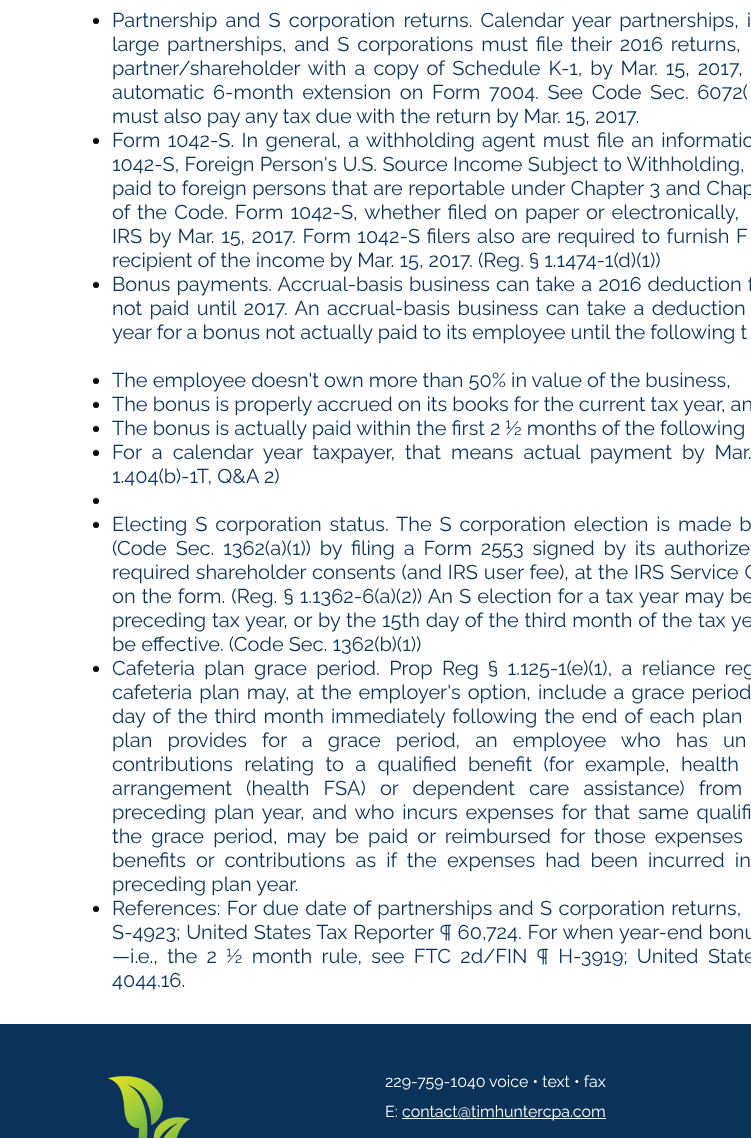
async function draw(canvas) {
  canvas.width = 751
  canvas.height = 1138
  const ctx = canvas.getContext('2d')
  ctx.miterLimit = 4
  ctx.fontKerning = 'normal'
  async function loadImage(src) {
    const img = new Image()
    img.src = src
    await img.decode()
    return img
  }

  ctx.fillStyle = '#fff'
  ctx.fillRect(0, 0, 751, 1138)
  ctx.fillStyle = '#000'
  ctx.beginPath()
  ctx.arc(96, 21, 3, 0, 2 * Math.PI)
  ctx.fill()
  ctx.wordSpacing = '3px'
  ctx.font = '20px Raleway'
  ctx.fillStyle = '#0b3259'
  ctx.fillText('Partnership and S corporation returns. Calendar year partnerships, i', 112, 27)
  ctx.wordSpacing = '2.75px'
  ctx.fillText('large partnerships, and S corporations must file their 2016 returns,', 112, 51)
  ctx.wordSpacing = '2.9px'
  ctx.fillText('partner/shareholder with a copy of Schedule K-1, by Mar. 15, 2017,', 112, 75)
  ctx.wordSpacing = '3.5px'
  ctx.fillText('automatic 6-month extension on Form 7004. See Code Sec. 6072(', 112, 99)
  ctx.wordSpacing = '0px'
  ctx.fillText('must also pay any tax due with the return by Mar. 15, 2017.', 112, 123)
  ctx.fillStyle = '#000'
  ctx.beginPath()
  ctx.arc(96, 141, 3, 0, 2 * Math.PI)
  ctx.fill()
  ctx.wordSpacing = '2.25px'
  ctx.fillStyle = '#0b3259'
  ctx.fillText('Form 1042-S. In general, a withholding agent must file an informatio', 112, 147)
  ctx.wordSpacing = '0.25px'
  ctx.fillText('1042-S, Foreign Person\'s U.S. Source Income Subject to Withholding,', 112, 171)
  ctx.wordSpacing = '0.5px'
  ctx.fillText('paid to foreign persons that are reportable under Chapter 3 and Chap', 112, 195)
  ctx.wordSpacing = '2px'
  ctx.fillText('of the Code. Form 1042-S, whether filed on paper or electronically,', 112, 219)
  ctx.wordSpacing = '1.4px'
  ctx.fillText('IRS by Mar. 15, 2017. Form 1042-S filers also are required to furnish F', 112, 243)
  ctx.wordSpacing = '0px'
  ctx.fillText('recipient of the income by Mar. 15, 2017. (Reg. § 1.1474-1(d)(1))', 112, 267)
  ctx.fillStyle = '#000'
  ctx.beginPath()
  ctx.arc(96, 285, 3, 0, 2 * Math.PI)
  ctx.fill()
  ctx.wordSpacing = '1px'
  ctx.fillStyle = '#0b3259'
  ctx.fillText('Bonus payments. Accrual-basis business can take a 2016 deduction f', 112, 291)
  ctx.wordSpacing = '2.25px'
  ctx.fillText('not paid until 2017. An accrual-basis business can take a deduction', 112, 315)
  ctx.wordSpacing = '0px'
  ctx.fillText('year for a bonus not actually paid to its employee until the following t', 112, 339)
  ctx.fillStyle = '#000'
  ctx.beginPath()
  ctx.arc(96, 381, 3, 0, 2 * Math.PI)
  ctx.fill()
  ctx.fillStyle = '#0b3259'
  ctx.fillText('The employee doesn\'t own more than 50% in value of the business,', 112, 387)
  ctx.fillStyle = '#000'
  ctx.beginPath()
  ctx.arc(96, 405, 3, 0, 2 * Math.PI)
  ctx.fill()
  ctx.fillStyle = '#0b3259'
  ctx.fillText('The bonus is properly accrued on its books for the current tax year, an', 112, 411)
  ctx.fillStyle = '#000'
  ctx.beginPath()
  ctx.arc(96, 429, 3, 0, 2 * Math.PI)
  ctx.fill()
  ctx.fillStyle = '#0b3259'
  ctx.fillText('The bonus is actually paid within the first 2 ½ months of the following', 112, 435)
  ctx.fillStyle = '#000'
  ctx.beginPath()
  ctx.arc(96, 453, 3, 0, 2 * Math.PI)
  ctx.fill()
  ctx.wordSpacing = '5px'
  ctx.fillStyle = '#0b3259'
  ctx.fillText('For a calendar year taxpayer, that means actual payment by Mar.', 112, 459)
  ctx.wordSpacing = '0px'
  ctx.fillText('1.404(b)-1T, Q&A 2)', 112, 483)
  ctx.fillStyle = '#000'
  ctx.beginPath()
  ctx.arc(96, 501, 3, 0, 2 * Math.PI)
  ctx.fill()
  ctx.beginPath()
  ctx.arc(96, 525, 3, 0, 2 * Math.PI)
  ctx.fill()
  ctx.wordSpacing = '2.75px'
  ctx.fillStyle = '#0b3259'
  ctx.fillText('Electing S corporation status. The S corporation election is made b', 112, 531)
  ctx.wordSpacing = '3.75px'
  ctx.fillText('(Code Sec. 1362(a)(1)) by filing a Form 2553 signed by its authorize', 112, 555)
  ctx.wordSpacing = '0.75px'
  ctx.fillText('required shareholder consents (and IRS user fee), at the IRS Service C', 112, 579)
  ctx.wordSpacing = '1px'
  ctx.fillText('on the form. (Reg. § 1.1362-6(a)(2)) An S election for a tax year may be', 112, 603)
  ctx.wordSpacing = '0.75px'
  ctx.fillText('preceding tax year, or by the 15th day of the third month of the tax ye', 112, 627)
  ctx.wordSpacing = '0px'
  ctx.fillText('be effective. (Code Sec. 1362(b)(1))', 112, 651)
  ctx.fillStyle = '#000'
  ctx.beginPath()
  ctx.arc(96, 669, 3, 0, 2 * Math.PI)
  ctx.fill()
  ctx.wordSpacing = '4.25px'
  ctx.fillStyle = '#0b3259'
  ctx.fillText('Cafeteria plan grace period. Prop Reg § 1.125-1(e)(1), a reliance reg', 112, 675)
  ctx.wordSpacing = '2px'
  ctx.fillText('cafeteria plan may, at the employer\'s option, include a grace period', 112, 699)
  ctx.fillText('day of the third month immediately following the end of each plan', 112, 723)
  ctx.wordSpacing = '10px'
  ctx.fillText('plan provides for a grace period, an employee who has un', 112, 747)
  ctx.wordSpacing = '6.25px'
  ctx.fillText('contributions relating to a qualified benefit (for example, health', 112, 771)
  ctx.wordSpacing = '9px'
  ctx.fillText('arrangement (health FSA) or dependent care assistance) from', 112, 795)
  ctx.wordSpacing = '2.75px'
  ctx.fillText('preceding plan year, and who incurs expenses for that same qualifi', 112, 819)
  ctx.wordSpacing = '4px'
  ctx.fillText('the grace period, may be paid or reimbursed for those expenses', 112, 843)
  ctx.wordSpacing = '5px'
  ctx.fillText('benefits or contributions as if the expenses had been incurred in', 112, 867)
  ctx.wordSpacing = '0px'
  ctx.fillText('preceding plan year.', 112, 891)
  ctx.fillStyle = '#000'
  ctx.beginPath()
  ctx.arc(96, 909, 3, 0, 2 * Math.PI)
  ctx.fill()
  ctx.wordSpacing = '1.25px'
  ctx.fillStyle = '#0b3259'
  ctx.fillText('References: For due date of partnerships and S corporation returns,', 112, 915)
  ctx.wordSpacing = '0.75px'
  ctx.fillText('S-4923; United States Tax Reporter ¶ 60,724. For when year-end bonu', 112, 939)
  ctx.wordSpacing = '4.25px'
  ctx.fillText('—i.e., the 2 ½ month rule, see FTC 2d/FIN ¶ H-3919; United State', 112, 963)
  ctx.wordSpacing = '0px'
  ctx.fillText('4044.16.', 112, 987)
  ctx.fillRect(0, 1024, 751, 114)
  ctx.drawImage(await loadImage('image0.png'), 108, 1076, 82, 62)
  ctx.font = '16px Raleway'
  ctx.fillStyle = '#fff'
  ctx.fillText('229-759-1040 voice • text • fax', 385, 1087)
  ctx.fillText('E:', 385, 1117)
  ctx.fillRect(402, 1118, 204, 1)
  ctx.fillText('contact@timhuntercpa.com', 402, 1117)
}

draw(document.querySelector('canvas'))
